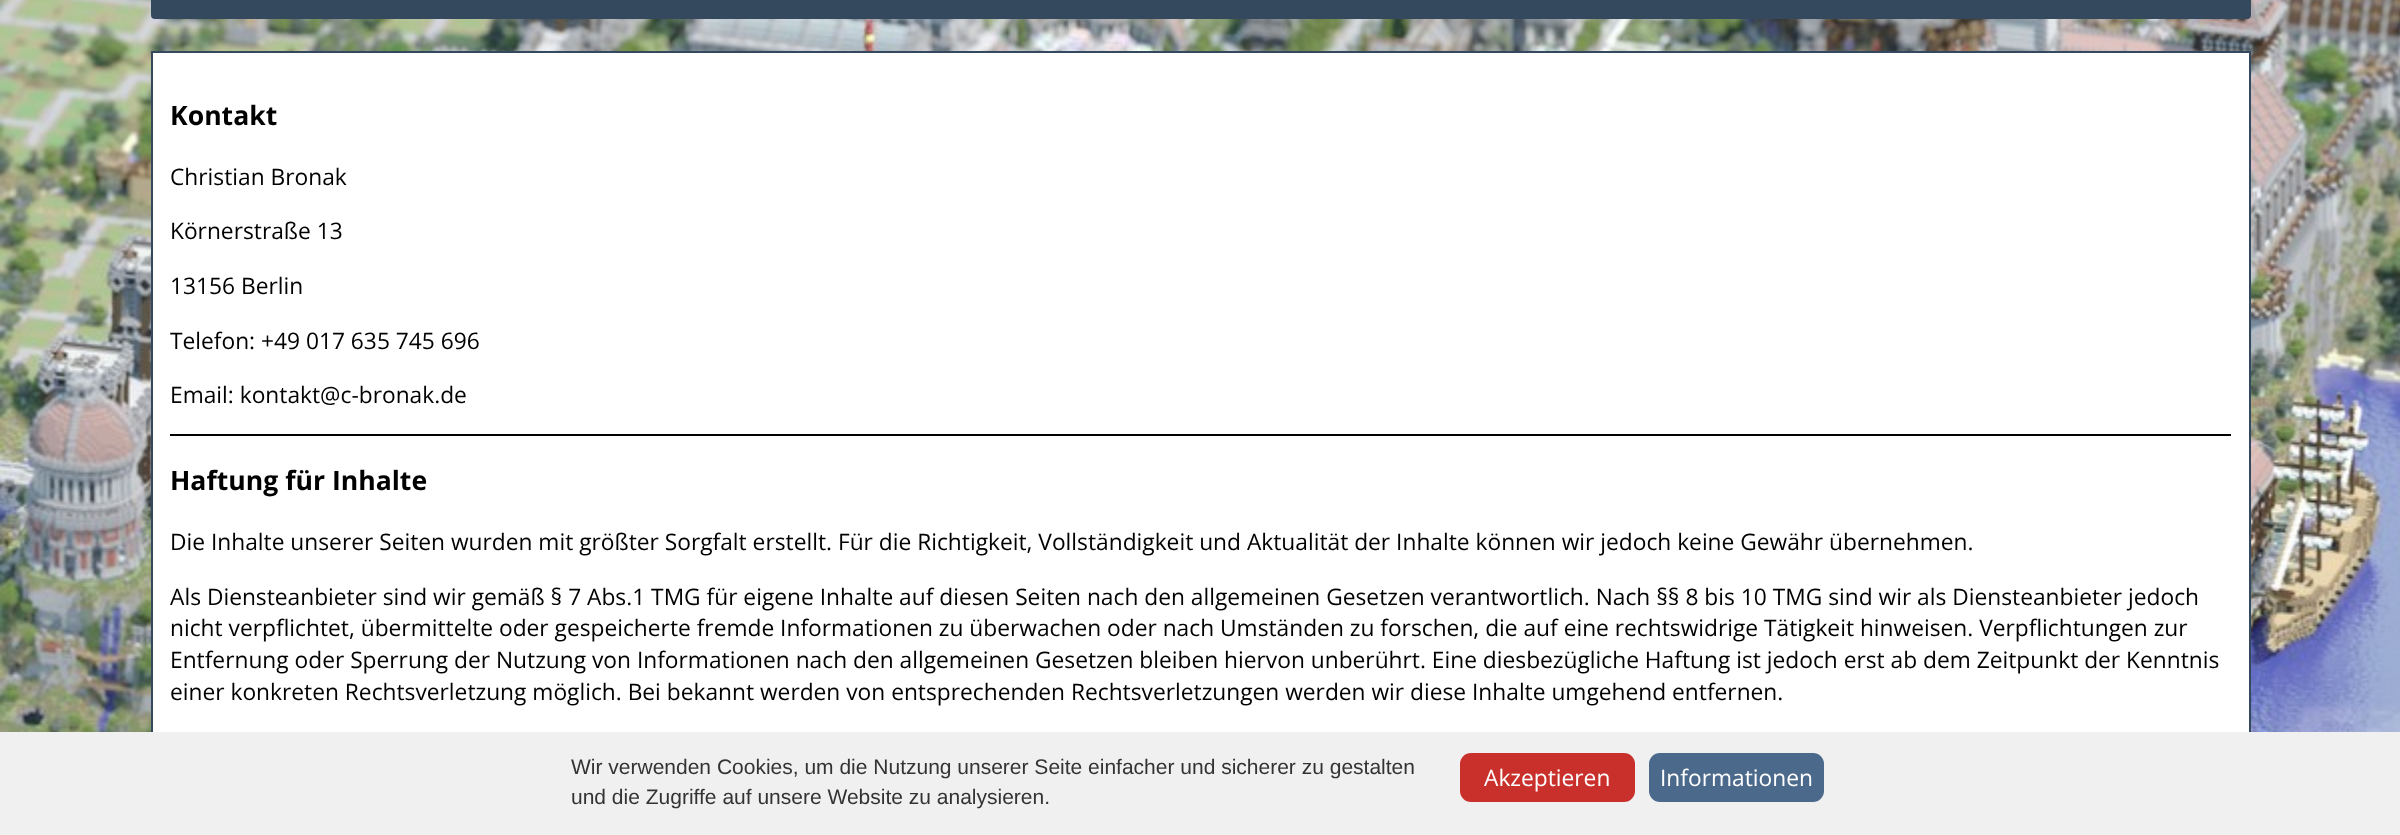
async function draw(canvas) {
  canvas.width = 2400
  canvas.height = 835
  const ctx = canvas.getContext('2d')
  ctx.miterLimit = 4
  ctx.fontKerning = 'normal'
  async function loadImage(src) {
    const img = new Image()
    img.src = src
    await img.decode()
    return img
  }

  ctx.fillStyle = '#fff'
  ctx.fillRect(0, 0, 2400, 835)
  ctx.drawImage(await loadImage('image0.png'), 0, 0, 2400, 732)
  ctx.fillStyle = '#34495e'
  ctx.beginPath()
  ctx.roundRect(151, -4, 2100, 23, 4)
  ctx.fill()
  ctx.fillStyle = '#fff'
  ctx.fillRect(153, 53, 2096, 679)
  ctx.strokeStyle = '#34495e'
  ctx.lineWidth = 2
  ctx.strokeRect(152, 52, 2098, 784)
  ctx.font = 'bold 26.6px Open Sans'
  ctx.fillStyle = '#000'
  ctx.fillText('Kontakt', 170, 125)
  ctx.font = '22.75px Open Sans'
  ctx.fillText('Christian Bronak', 170, 185)
  ctx.fillText('Körnerstraße 13', 170, 239)
  ctx.fillText('13156 Berlin', 170, 294)
  ctx.fillText('Telefon: +49 017 635 745 696', 170, 349)
  ctx.fillText('Email: kontakt@c-bronak.de', 170, 403)
  ctx.fillRect(170, 434, 2061, 2)
  ctx.font = 'bold 26.6px Open Sans'
  ctx.fillText('Haftung für Inhalte', 170, 490)
  ctx.font = '22.75px Open Sans'
  ctx.fillText('Die Inhalte unserer Seiten wurden mit größter Sorgfalt erstellt. Für die Richtigkeit, Vollständigkeit und Aktualität der Inhalte können wir jedoch keine Gewähr übernehmen.', 170, 550)
  ctx.fillText('Als Diensteanbieter sind wir gemäß § 7 Abs.1 TMG für eigene Inhalte auf diesen Seiten nach den allgemeinen Gesetzen verantwortlich. Nach §§ 8 bis 10 TMG sind wir als Diensteanbieter jedoch', 170, 605)
  ctx.fillText('nicht verpflichtet, übermittelte oder gespeicherte fremde Informationen zu überwachen oder nach Umständen zu forschen, die auf eine rechtswidrige Tätigkeit hinweisen. Verpflichtungen zur', 170, 636)
  ctx.fillText('Entfernung oder Sperrung der Nutzung von Informationen nach den allgemeinen Gesetzen bleiben hiervon unberührt. Eine diesbezügliche Haftung ist jedoch erst ab dem Zeitpunkt der Kenntnis', 170, 668)
  ctx.fillText('einer konkreten Rechtsverletzung möglich. Bei bekannt werden von entsprechenden Rechtsverletzungen werden wir diese Inhalte umgehend entfernen.', 170, 700)
  ctx.fillStyle = '#f0f0f0'
  ctx.fillRect(0, 732, 2400, 103)
  ctx.font = '21px Liberation Sans'
  ctx.fillStyle = '#333'
  ctx.fillText('Wir verwenden Cookies, um die Nutzung unserer Seite einfacher und sicherer zu gestalten', 571, 774)
  ctx.fillText('und die Zugriffe auf unsere Website zu analysieren.', 571, 804)
  ctx.fillStyle = '#c9302c'
  ctx.beginPath()
  ctx.roundRect(1460, 753, 175, 49, 11)
  ctx.fill()
  ctx.font = '22.75px Open Sans'
  ctx.fillStyle = '#fff'
  ctx.fillText('Akzeptieren', 1484, 786)
  ctx.fillStyle = '#4b698b'
  ctx.beginPath()
  ctx.roundRect(1649, 753, 175, 49, 11)
  ctx.fill()
  ctx.fillStyle = '#fff'
  ctx.fillText('Informationen', 1660, 786)
}

draw(document.querySelector('canvas'))
